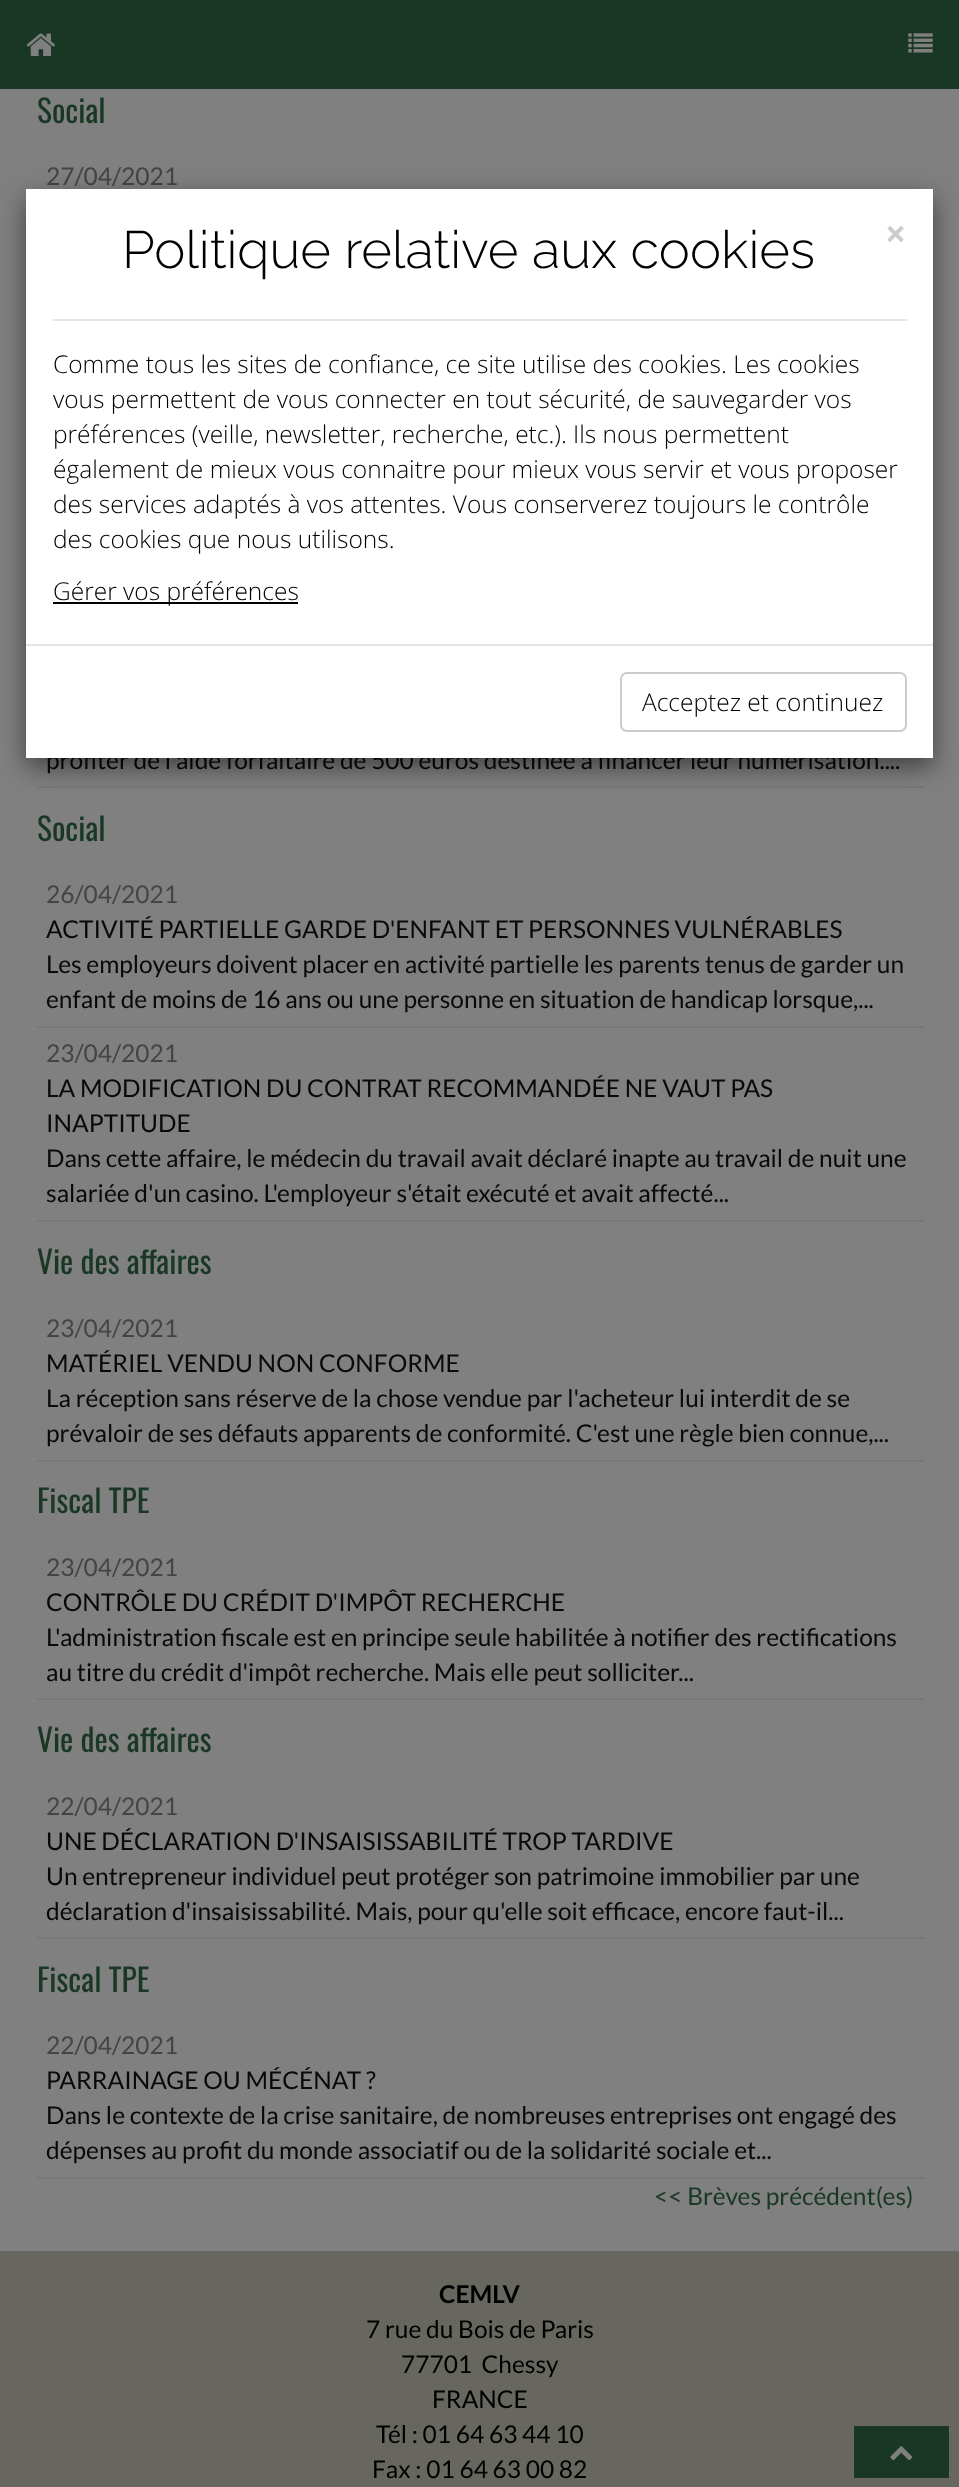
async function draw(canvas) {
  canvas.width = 959
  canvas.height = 2487
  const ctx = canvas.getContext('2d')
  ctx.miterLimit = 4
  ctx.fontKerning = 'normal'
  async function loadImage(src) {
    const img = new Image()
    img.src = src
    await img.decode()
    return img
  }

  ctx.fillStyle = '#67665f'
  ctx.fillRect(0, 0, 959, 2487)
  ctx.fillStyle = '#193725'
  ctx.fillRect(0, 0, 959, 89)
  ctx.drawImage(await loadImage('image0.png'), 26, 33, 29, 23)
  ctx.drawImage(await loadImage('image1.png'), 908, 33, 25, 20)
  ctx.fillStyle = '#808080'
  ctx.fillRect(0, 89, 959, 2162)
  ctx.font = '31.5px Oswald'
  ctx.fillStyle = '#193725'
  ctx.fillText('Social', 37, 123)
  ctx.font = '24.5px Lato'
  ctx.fillStyle = '#444'
  ctx.fillText('27/04/2021', 46, 185)
  ctx.fillStyle = '#787878'
  ctx.fillRect(37, 786, 887, 2)
  ctx.fillStyle = '#090909'
  ctx.fillText('profiter de l\'aide forfaitaire de 500 euros destinée à financer leur numérisation....', 46, 769)
  ctx.font = '31.5px Oswald'
  ctx.fillStyle = '#193725'
  ctx.fillText('Social', 37, 841)
  ctx.fillStyle = '#787878'
  ctx.fillRect(37, 1026, 887, 2)
  ctx.font = '24.5px Lato'
  ctx.fillStyle = '#444'
  ctx.fillText('26/04/2021', 46, 903)
  ctx.fillStyle = '#090909'
  ctx.fillText('ACTIVITÉ PARTIELLE GARDE D\'ENFANT ET PERSONNES VULNÉRABLES', 46, 938)
  ctx.fillText('Les employeurs doivent placer en activité partielle les parents tenus de garder un', 46, 973)
  ctx.fillText('enfant de moins de 16 ans ou une personne en situation de handicap lorsque,...', 46, 1008)
  ctx.fillStyle = '#787878'
  ctx.fillRect(37, 1220, 887, 2)
  ctx.fillStyle = '#444'
  ctx.fillText('23/04/2021', 46, 1062)
  ctx.fillStyle = '#090909'
  ctx.fillText('LA MODIFICATION DU CONTRAT RECOMMANDÉE NE VAUT PAS', 46, 1097)
  ctx.fillText('INAPTITUDE', 46, 1132)
  ctx.fillText('Dans cette affaire, le médecin du travail avait déclaré inapte au travail de nuit une', 46, 1167)
  ctx.fillText('salariée d\'un casino. L\'employeur s\'était exécuté et avait affecté...', 46, 1202)
  ctx.font = '31.5px Oswald'
  ctx.fillStyle = '#193725'
  ctx.fillText('Vie des affaires', 37, 1274)
  ctx.fillStyle = '#787878'
  ctx.fillRect(37, 1460, 887, 2)
  ctx.font = '24.5px Lato'
  ctx.fillStyle = '#444'
  ctx.fillText('23/04/2021', 46, 1337)
  ctx.fillStyle = '#090909'
  ctx.fillText('MATÉRIEL VENDU NON CONFORME', 46, 1372)
  ctx.fillText('La réception sans réserve de la chose vendue par l\'acheteur lui interdit de se', 46, 1407)
  ctx.fillText('prévaloir de ses défauts apparents de conformité. C\'est une règle bien connue,...', 46, 1442)
  ctx.font = '31.5px Oswald'
  ctx.fillStyle = '#193725'
  ctx.fillText('Fiscal TPE', 37, 1513)
  ctx.fillStyle = '#787878'
  ctx.fillRect(37, 1698, 887, 2)
  ctx.font = '24.5px Lato'
  ctx.fillStyle = '#444'
  ctx.fillText('23/04/2021', 46, 1576)
  ctx.fillStyle = '#090909'
  ctx.fillText('CONTRÔLE DU CRÉDIT D\'IMPÔT RECHERCHE', 46, 1611)
  ctx.fillText('L\'administration fiscale est en principe seule habilitée à notifier des rectifications', 46, 1646)
  ctx.fillText('au titre du crédit d\'impôt recherche. Mais elle peut solliciter...', 46, 1681)
  ctx.font = '31.5px Oswald'
  ctx.fillStyle = '#193725'
  ctx.fillText('Vie des affaires', 37, 1752)
  ctx.fillStyle = '#787878'
  ctx.fillRect(37, 1937, 887, 2)
  ctx.font = '24.5px Lato'
  ctx.fillStyle = '#444'
  ctx.fillText('22/04/2021', 46, 1815)
  ctx.fillStyle = '#090909'
  ctx.fillText('UNE DÉCLARATION D\'INSAISISSABILITÉ TROP TARDIVE', 46, 1850)
  ctx.fillText('Un entrepreneur individuel peut protéger son patrimoine immobilier par une', 46, 1885)
  ctx.fillText('déclaration d\'insaisissabilité. Mais, pour qu\'elle soit efficace, encore faut-il...', 46, 1920)
  ctx.font = '31.5px Oswald'
  ctx.fillStyle = '#193725'
  ctx.fillText('Fiscal TPE', 37, 1992)
  ctx.fillStyle = '#787878'
  ctx.fillRect(37, 2177, 887, 2)
  ctx.font = '24.5px Lato'
  ctx.fillStyle = '#444'
  ctx.fillText('22/04/2021', 46, 2054)
  ctx.fillStyle = '#090909'
  ctx.fillText('PARRAINAGE OU MÉCÉNAT ?', 46, 2089)
  ctx.fillText('Dans le contexte de la crise sanitaire, de nombreuses entreprises ont engagé des', 46, 2124)
  ctx.fillText('dépenses au profit du monde associatif ou de la solidarité sociale et...', 46, 2159)
  ctx.fillStyle = '#193725'
  ctx.fillText('<< Brèves précédent(es)', 654, 2205)
  ctx.fillRect(854, 2426, 95, 52)
  ctx.drawImage(await loadImage('image2.png'), 890, 2446, 23, 15)
  ctx.fillStyle = '#00000080'
  ctx.filter = 'blur(13px)'
  ctx.beginPath()
  ctx.rect(26, 198, 907, 569)
  ctx.fill()
  ctx.filter = 'none'
  ctx.fillStyle = '#fff'
  ctx.fillRect(26, 189, 907, 569)
  ctx.font = '100 52.5px Raleway'
  ctx.fillStyle = '#000'
  ctx.fillText('Politique relative aux cookies', 122, 268)
  ctx.font = 'bold 37px Open Sans'
  ctx.fillStyle = '#ccc'
  ctx.fillText('×', 885, 247)
  ctx.fillStyle = '#e5e5e5'
  ctx.fillRect(53, 319, 854, 2)
  ctx.font = '300 24.5px Open Sans'
  ctx.fillStyle = '#000'
  ctx.fillText('Comme tous les sites de confiance, ce site utilise des cookies. Les cookies', 53, 373)
  ctx.fillText('vous permettent de vous connecter en tout sécurité, de sauvegarder vos', 53, 408)
  ctx.fillText('préférences (veille, newsletter, recherche, etc.). Ils nous permettent', 53, 443)
  ctx.fillText('également de mieux vous connaitre pour mieux vous servir et vous proposer', 53, 478)
  ctx.fillText('des services adaptés à vos attentes. Vous conserverez toujours le contrôle', 53, 513)
  ctx.fillText('des cookies que nous utilisons.', 53, 548)
  ctx.fillRect(53, 602, 245, 2)
  ctx.fillText('Gérer vos préférences', 53, 600)
  ctx.fillStyle = '#e5e5e5'
  ctx.fillRect(26, 644, 907, 2)
  ctx.beginPath()
  ctx.roundRect(621, 673, 285, 58, 6)
  ctx.strokeStyle = '#ccc'
  ctx.lineWidth = 2
  ctx.stroke()
  ctx.fillStyle = '#000'
  ctx.fillText('Acceptez et continuez', 642, 711)
  ctx.font = 'bold 24.5px Lato'
  ctx.fillText('CEMLV', 439, 2303)
  ctx.font = '24.5px Lato'
  ctx.fillText('7 rue du Bois de Paris', 366, 2338)
  ctx.fillText('77701  Chessy', 401, 2373)
  ctx.fillText('FRANCE', 432, 2408)
  ctx.fillText('Tél : 01 64 63 44 10', 376, 2443)
  ctx.fillText('Fax : 01 64 63 00 82', 372, 2478)
}

draw(document.querySelector('canvas'))
